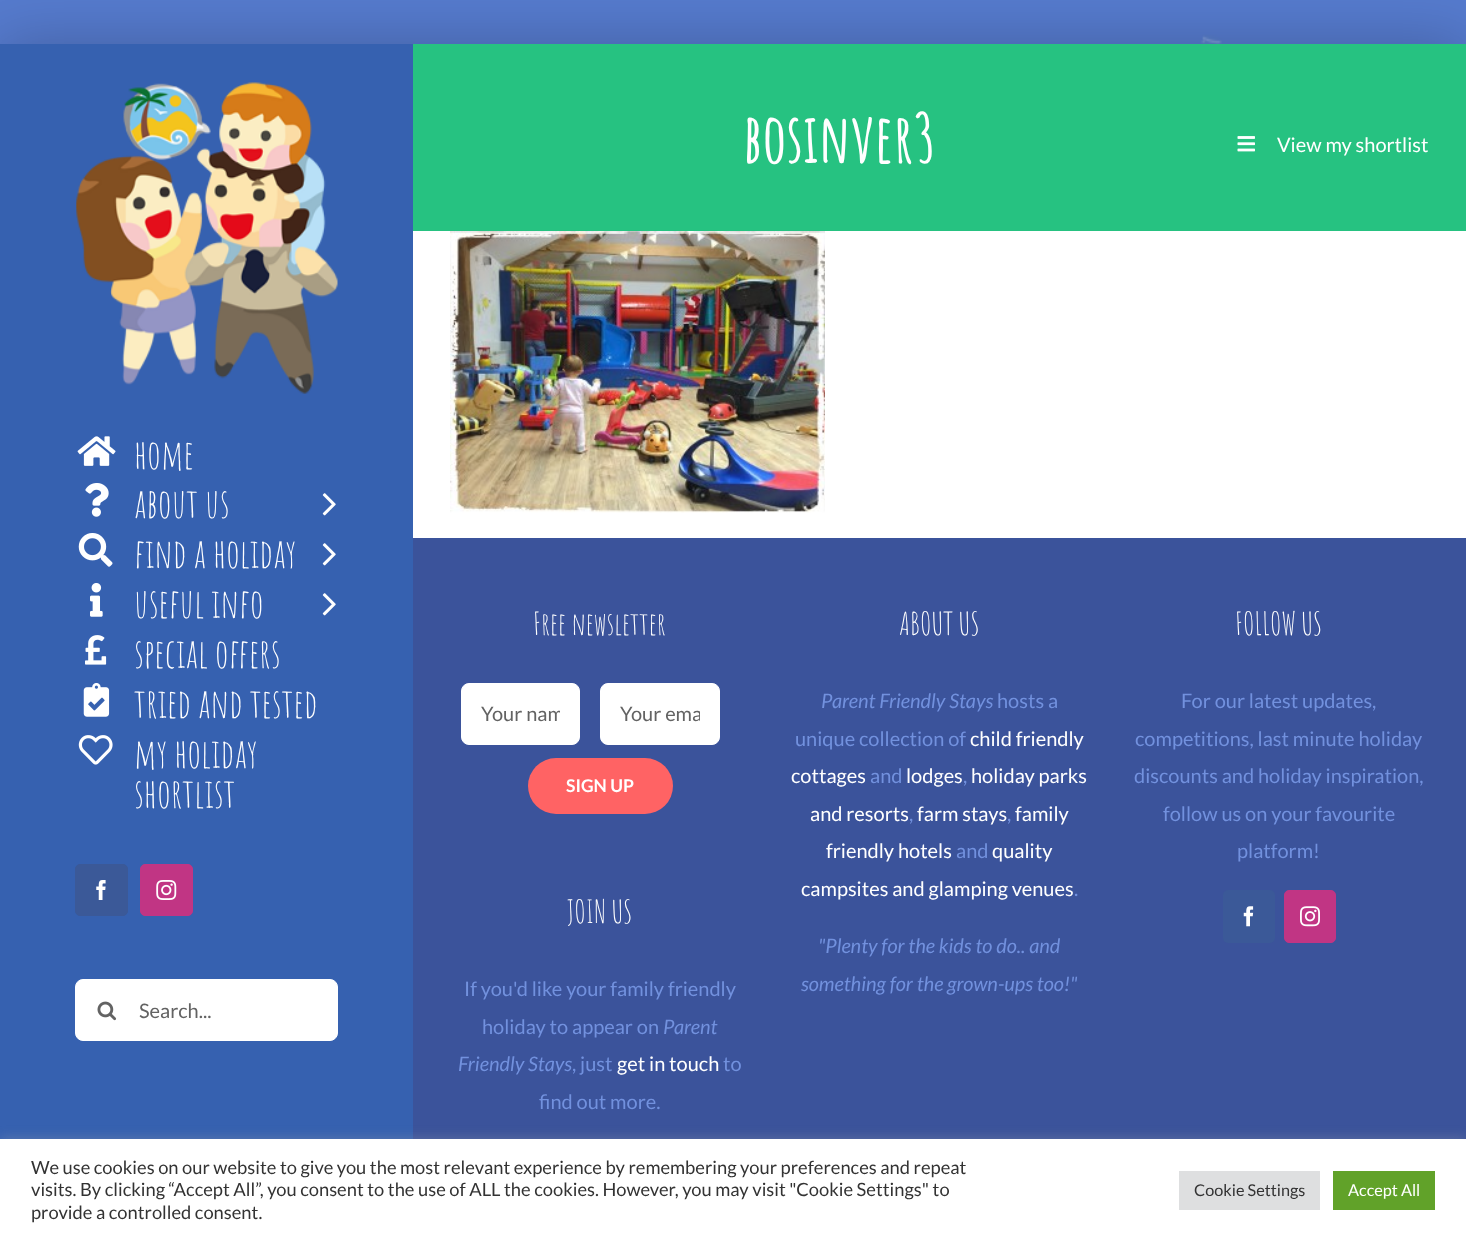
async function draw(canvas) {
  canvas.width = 1466
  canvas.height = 1241
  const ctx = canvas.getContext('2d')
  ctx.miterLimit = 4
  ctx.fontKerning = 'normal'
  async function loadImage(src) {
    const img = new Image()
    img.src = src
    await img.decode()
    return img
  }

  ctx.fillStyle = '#fff'
  ctx.fillRect(0, 0, 1466, 1241)
  ctx.drawImage(await loadImage('image0.png'), 0, 0, 1466, 44)
  ctx.fillStyle = '#00000038'
  ctx.filter = 'blur(31px)'
  ctx.beginPath()
  ctx.rect(-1, 43, 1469, 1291)
  ctx.fill()
  ctx.filter = 'none'
  ctx.fillStyle = '#26c281'
  ctx.fillRect(413, 44, 1053, 187)
  ctx.font = 'bold 67.5px Amatic SC'
  ctx.fillStyle = '#fff'
  ctx.fillText('bosinver3', 743, 163)
  ctx.drawImage(await loadImage('image1.png'), 1237, 136, 18, 16)
  ctx.font = '20px Lato'
  ctx.fillText('View my shortlist', 1277, 152)
  ctx.fillRect(413, 231, 1053, 307)
  ctx.drawImage(await loadImage('image2.png'), 450, 231, 375, 282)
  ctx.fillStyle = '#3661b0'
  ctx.fillRect(0, 44, 413, 1095)
  ctx.drawImage(await loadImage('image3.png'), 76, 82, 262, 312)
  ctx.drawImage(await loadImage('image4.png'), 77, 436, 39, 30)
  ctx.font = '40px Amatic SC'
  ctx.fillStyle = '#fff'
  ctx.fillText('home', 134, 469)
  ctx.drawImage(await loadImage('image5.png'), 85, 483, 24, 34)
  ctx.fillText('about us', 134, 518)
  ctx.drawImage(await loadImage('image6.png'), 322, 493, 14, 23)
  ctx.drawImage(await loadImage('image7.png'), 78, 533, 35, 34)
  ctx.fillText('find a holiday', 134, 568)
  ctx.drawImage(await loadImage('image6.png'), 322, 543, 14, 23)
  ctx.drawImage(await loadImage('image8.png'), 90, 583, 13, 34)
  ctx.fillText('useful info', 134, 618)
  ctx.drawImage(await loadImage('image6.png'), 322, 593, 14, 23)
  ctx.drawImage(await loadImage('image9.png'), 85, 635, 22, 30)
  ctx.fillText('special offers', 134, 668)
  ctx.drawImage(await loadImage('image10.png'), 83, 683, 27, 34)
  ctx.fillText('tried and tested', 134, 718)
  ctx.drawImage(await loadImage('image11.png'), 78, 735, 35, 30)
  ctx.fillText('my holiday', 134, 768)
  ctx.fillText('shortlist', 134, 808)
  ctx.fillStyle = '#3b5998'
  ctx.beginPath()
  ctx.roundRect(75.5, 864.5, 52, 51, 4.5)
  ctx.fill()
  ctx.strokeStyle = '#3b5998'
  ctx.stroke()
  ctx.drawImage(await loadImage('image12.png'), 96, 880, 10, 20)
  ctx.fillStyle = '#c13584'
  ctx.beginPath()
  ctx.roundRect(140.5, 864.5, 52, 51, 4.5)
  ctx.fill()
  ctx.strokeStyle = '#c13584'
  ctx.stroke()
  ctx.drawImage(await loadImage('image13.png'), 156, 880, 21, 20)
  ctx.fillStyle = '#fff'
  ctx.beginPath()
  ctx.roundRect(75.5, 979.5, 262, 61, 7.5)
  ctx.fill()
  ctx.strokeStyle = '#fff'
  ctx.stroke()
  ctx.drawImage(await loadImage('image14.png'), 97, 1001, 20, 20)
  ctx.font = '20px Lato'
  ctx.fillStyle = '#636363'
  ctx.fillText('Search...', 139, 1018)
  ctx.fillStyle = '#3b539b'
  ctx.fillRect(413, 538, 1053, 601)
  ctx.font = '31.25px Amatic SC'
  ctx.fillStyle = '#fff'
  ctx.fillText('Free newsletter', 533, 635)
  ctx.beginPath()
  ctx.roundRect(461.5, 683.5, 118, 61, 7.5)
  ctx.fill()
  ctx.stroke()
  ctx.save()
  ctx.beginPath()
  ctx.rect(481, 701, 79, 24)
  ctx.clip()
  ctx.font = '20px Lato'
  ctx.fillStyle = '#636363'
  ctx.fillText('Your nam', 481, 721)
  ctx.restore()
  ctx.beginPath()
  ctx.roundRect(600.5, 683.5, 119, 61, 7.5)
  ctx.fill()
  ctx.stroke()
  ctx.save()
  ctx.beginPath()
  ctx.rect(620, 701, 80, 24)
  ctx.clip()
  ctx.font = '20px Lato'
  ctx.fillStyle = '#636363'
  ctx.fillText('Your ema', 620, 721)
  ctx.restore()
  ctx.fillStyle = '#ff6364'
  ctx.beginPath()
  ctx.roundRect(528, 758, 145, 56, 28)
  ctx.fill()
  ctx.font = 'bold 17.5px Lato'
  ctx.fillStyle = '#fff'
  ctx.fillText('SIGN UP', 566, 792)
  ctx.font = '31.25px Amatic SC'
  ctx.fillText('JOIN US', 567, 923)
  ctx.font = '20px Lato'
  ctx.fillStyle = '#7291de'
  ctx.fillText('If you\'d like your family friendly', 464, 996)
  ctx.fillText('holiday to appear on', 482, 1034)
  ctx.font = 'italic 20px Lato'
  ctx.fillText('Parent', 663, 1034)
  ctx.fillText('Friendly Stays', 458, 1071)
  ctx.font = '20px Lato'
  ctx.fillText(', just', 572, 1071)
  ctx.fillStyle = '#fff'
  ctx.fillText('get in touch', 617, 1071)
  ctx.fillStyle = '#7291de'
  ctx.fillText('to', 723, 1071)
  ctx.fillText('find out more.', 539, 1109)
  ctx.font = '31.25px Amatic SC'
  ctx.fillStyle = '#fff'
  ctx.fillText('ABOUT US', 899, 635)
  ctx.font = 'italic 20px Lato'
  ctx.fillStyle = '#7291de'
  ctx.fillText('Parent Friendly Stays', 821, 708)
  ctx.font = '20px Lato'
  ctx.fillText('hosts a', 997, 708)
  ctx.fillText('unique collection of', 795, 746)
  ctx.fillStyle = '#fff'
  ctx.fillText('child friendly', 970, 746)
  ctx.fillText('cottages', 791, 783)
  ctx.fillStyle = '#7291de'
  ctx.fillText('and', 870, 783)
  ctx.fillStyle = '#fff'
  ctx.fillText('lodges', 906, 783)
  ctx.fillStyle = '#7291de'
  ctx.fillText(',', 963, 783)
  ctx.fillStyle = '#fff'
  ctx.fillText('holiday parks', 971, 783)
  ctx.fillText('and resorts', 810, 821)
  ctx.fillStyle = '#7291de'
  ctx.fillText(',', 909, 821)
  ctx.fillStyle = '#fff'
  ctx.fillText('farm stays', 917, 821)
  ctx.fillStyle = '#7291de'
  ctx.fillText(',', 1007, 821)
  ctx.fillStyle = '#fff'
  ctx.fillText('family', 1015, 821)
  ctx.fillText('friendly hotels', 826, 858)
  ctx.fillStyle = '#7291de'
  ctx.fillText('and', 956, 858)
  ctx.fillStyle = '#fff'
  ctx.fillText('quality', 992, 858)
  ctx.fillText('campsites and glamping venues', 801, 896)
  ctx.fillStyle = '#7291de'
  ctx.fillText('.', 1074, 896)
  ctx.font = 'italic 20px Lato'
  ctx.fillText('"Plenty for the kids to do.. and', 818, 953)
  ctx.fillText('something for the grown-ups too!"', 801, 991)
  ctx.font = '31.25px Amatic SC'
  ctx.fillStyle = '#fff'
  ctx.fillText('FOLLOW US', 1235, 635)
  ctx.font = '20px Lato'
  ctx.fillStyle = '#7291de'
  ctx.fillText('For our latest updates,', 1181, 708)
  ctx.fillText('competitions, last minute holiday', 1135, 746)
  ctx.fillText('discounts and holiday inspiration,', 1134, 783)
  ctx.fillText('follow us on your favourite', 1163, 821)
  ctx.fillText('platform!', 1237, 858)
  ctx.fillStyle = '#3b5998'
  ctx.beginPath()
  ctx.roundRect(1223, 890, 52, 53, 5)
  ctx.fill()
  ctx.drawImage(await loadImage('image15.png'), 1243, 906, 11, 21)
  ctx.fillStyle = '#c13584'
  ctx.beginPath()
  ctx.roundRect(1284.5, 890.5, 51, 52, 4.5)
  ctx.fill()
  ctx.strokeStyle = '#c13584'
  ctx.stroke()
  ctx.drawImage(await loadImage('image16.png'), 1300, 906, 20, 21)
  ctx.fillStyle = '#acabab4d'
  ctx.filter = 'blur(6px)'
  ctx.beginPath()
  ctx.rect(0, 1138, 1466, 102)
  ctx.fill()
  ctx.filter = 'none'
  ctx.fillStyle = '#fff'
  ctx.fillRect(0, 1139, 1466, 102)
  ctx.font = '18.33px Lato'
  ctx.fillStyle = '#333'
  ctx.fillText('We use cookies on our website to give you the most relevant experience by remembering your preferences and repeat', 31, 1174)
  ctx.fillText('visits. By clicking “Accept All”, you consent to the use of ALL the cookies. However, you may visit "Cookie Settings" to', 31, 1196)
  ctx.fillText('provide a controlled consent.', 31, 1219)
  ctx.fillStyle = '#dedfe0'
  ctx.fillRect(1179, 1171, 141, 39)
  ctx.font = '16.25px Lato'
  ctx.fillStyle = '#333'
  ctx.fillText('Cookie Settings', 1194, 1196)
  ctx.fillStyle = '#61a229'
  ctx.fillRect(1333, 1171, 102, 39)
  ctx.fillStyle = '#fff'
  ctx.fillText('Accept All', 1348, 1196)
}

draw(document.querySelector('canvas'))
